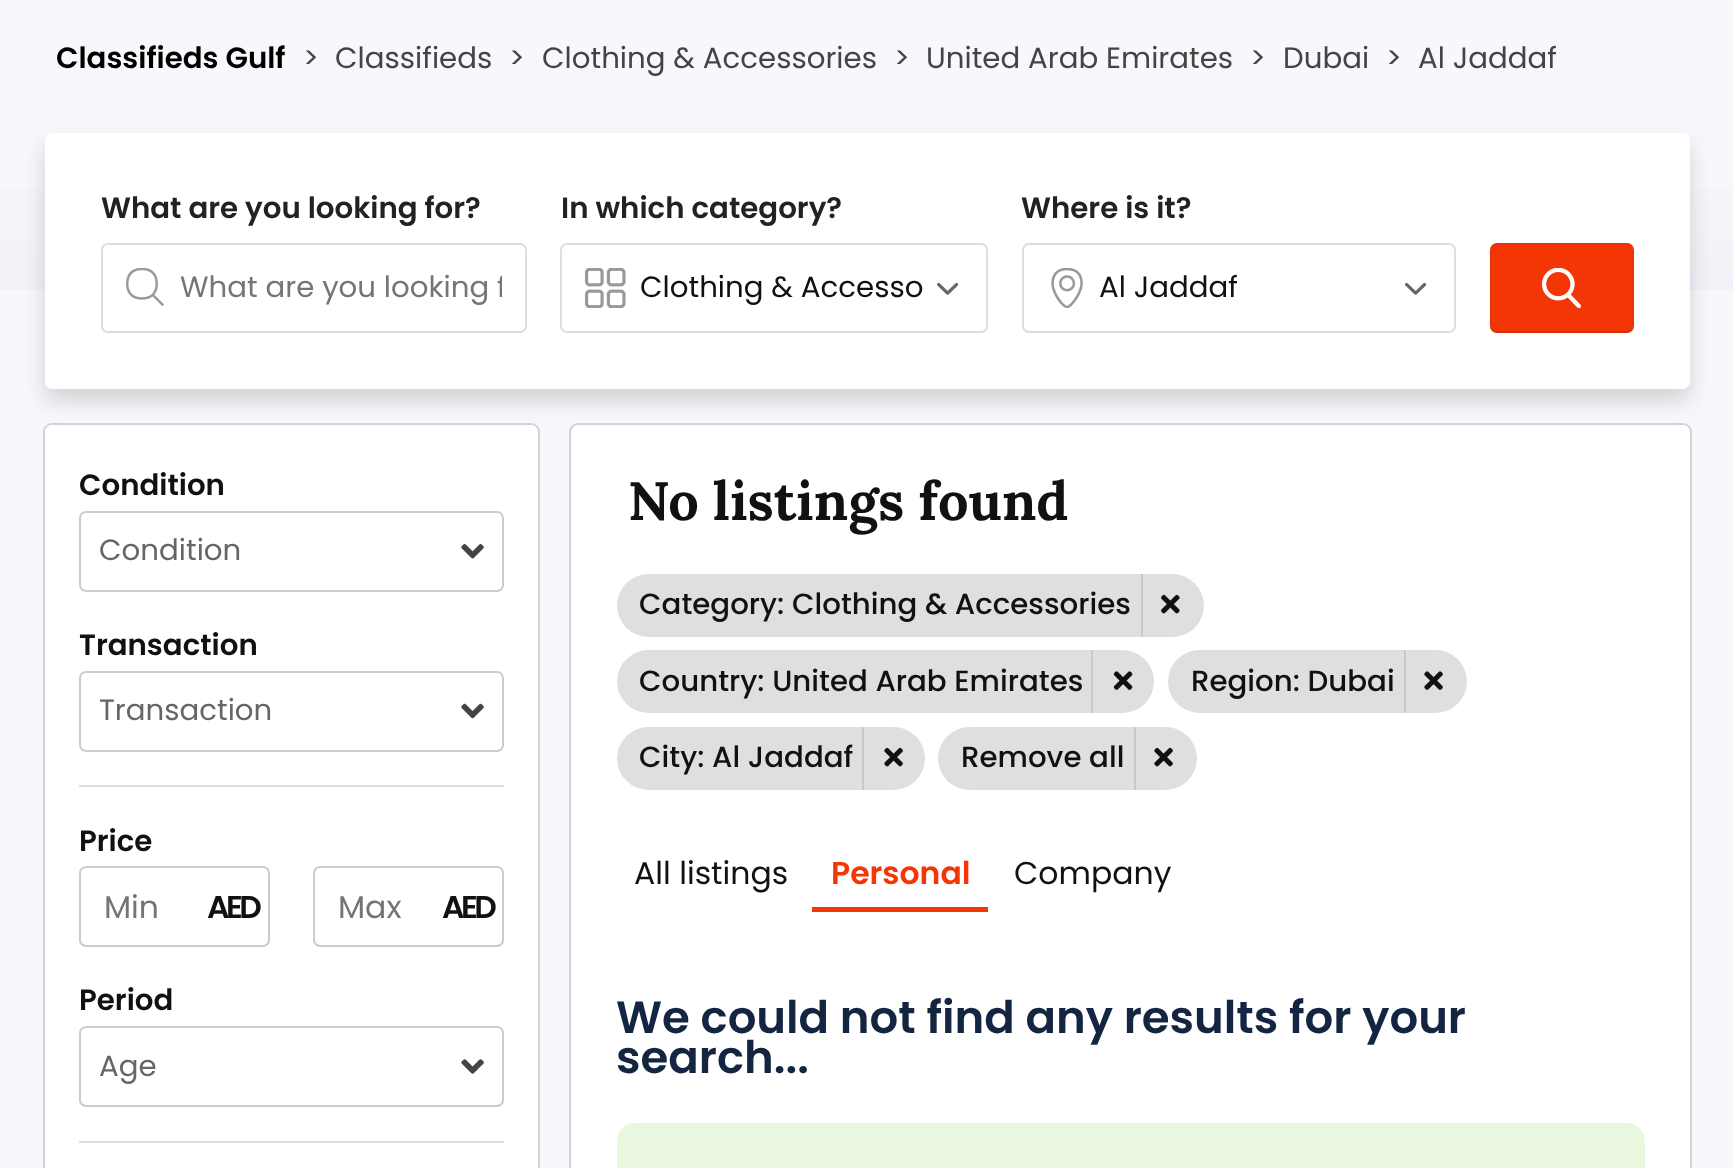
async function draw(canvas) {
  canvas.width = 1733
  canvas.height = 1168
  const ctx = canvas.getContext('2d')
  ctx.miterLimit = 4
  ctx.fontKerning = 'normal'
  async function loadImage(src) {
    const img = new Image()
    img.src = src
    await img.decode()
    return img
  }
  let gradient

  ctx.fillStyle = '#f7f8fb'
  ctx.fillRect(0, 0, 1733, 1168)
  ctx.font = '600 29.25px Poppins'
  ctx.fillStyle = '#000'
  ctx.fillText('Classifieds Gulf', 56, 68)
  ctx.font = '29.25px Poppins'
  ctx.fillStyle = '#444'
  ctx.fillText('>', 303, 68)
  ctx.fillText('Classifieds', 335, 68)
  ctx.fillText('>', 509, 68)
  ctx.fillText('Clothing & Accessories', 542, 68)
  ctx.fillText('>', 894, 68)
  ctx.fillText('United Arab Emirates', 926, 68)
  ctx.fillText('>', 1250, 68)
  ctx.fillText('Dubai', 1283, 68)
  ctx.fillText('>', 1386, 68)
  ctx.fillText('Al Jaddaf', 1418, 68)
  gradient = ctx.createLinearGradient(867, 133, 867, 290)
  gradient.addColorStop(0, '#f7f8fb')
  gradient.addColorStop(1, '#f0f2f7')
  ctx.fillStyle = gradient
  ctx.fillRect(0, 189, 1733, 101)
  ctx.beginPath()
  ctx.roundRect(44, 424, 495, 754, 8)
  ctx.strokeStyle = '#d2d3d5'
  ctx.lineWidth = 2
  ctx.stroke()
  ctx.fillStyle = '#fff'
  ctx.beginPath()
  ctx.roundRect(45, 425, 493, 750, 7)
  ctx.fill()
  ctx.beginPath()
  ctx.roundRect(570, 424, 1121, 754, 8)
  ctx.stroke()
  ctx.beginPath()
  ctx.roundRect(572, 425, 1118, 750, 7)
  ctx.fill()
  ctx.fillStyle = '#00000026'
  ctx.filter = 'blur(11px)'
  ctx.beginPath()
  ctx.roundRect(45, 144, 1645, 257, 7)
  ctx.fill()
  ctx.filter = 'none'
  ctx.fillStyle = '#fff'
  ctx.beginPath()
  ctx.roundRect(45, 133, 1645, 256, 7)
  ctx.fill()
  ctx.font = '600 29.25px Poppins'
  ctx.fillStyle = '#222'
  ctx.fillText('What are you looking for?', 101, 218)
  ctx.beginPath()
  ctx.roundRect(102, 244, 424, 88, 6)
  ctx.strokeStyle = '#ddd'
  ctx.stroke()
  ctx.drawImage(await loadImage('image0.png'), 126, 268, 38, 39)
  ctx.save()
  ctx.beginPath()
  ctx.rect(180, 266, 322, 45)
  ctx.clip()
  ctx.font = '29.25px Poppins'
  ctx.fillStyle = '#757575'
  ctx.fillText('What are you looking f', 180, 297)
  ctx.restore()
  ctx.fillText('In which category?', 561, 218)
  ctx.beginPath()
  ctx.roundRect(561, 244, 426, 88, 6)
  ctx.stroke()
  ctx.drawImage(await loadImage('image1.png'), 585, 268, 41, 40)
  ctx.font = '29.25px Poppins'
  ctx.fillStyle = '#111'
  ctx.fillText('Clothing & Accesso', 640, 297)
  ctx.drawImage(await loadImage('image2.png'), 937, 282, 22, 13)
  ctx.font = '600 29.25px Poppins'
  ctx.fillStyle = '#222'
  ctx.fillText('Where is it?', 1021, 218)
  ctx.beginPath()
  ctx.roundRect(1023, 244, 432, 88, 6)
  ctx.stroke()
  ctx.drawImage(await loadImage('image3.png'), 1051, 268, 32, 40)
  ctx.font = '29.25px Poppins'
  ctx.fillStyle = '#111'
  ctx.fillText('Al Jaddaf', 1099, 297)
  ctx.drawImage(await loadImage('image2.png'), 1405, 282, 22, 13)
  ctx.fillStyle = '#f43606'
  ctx.beginPath()
  ctx.roundRect(1490, 243, 144, 90, 7)
  ctx.fill()
  ctx.beginPath()
  ctx.moveTo(1630.5, 330)
  ctx.lineTo(1627.5, 332)
  ctx.lineTo(1495.5, 332)
  ctx.lineTo(1492.5, 330)
  ctx.strokeStyle = '#0000001a'
  ctx.lineWidth = 2.2
  ctx.stroke()
  ctx.beginPath()
  ctx.moveTo(1492.5, 330)
  ctx.bezierCurveTo(1491, 329, 1490.5, 327.5, 1490.5, 326)
  ctx.lineTo(1490.5, 250)
  ctx.bezierCurveTo(1490.5, 248.5, 1491, 247, 1492.5, 246)
  ctx.bezierCurveTo(1493.5, 244.5, 1495, 244, 1496, 244)
  ctx.lineTo(1627, 244)
  ctx.bezierCurveTo(1628, 244, 1629.5, 244.5, 1630.5, 246)
  ctx.bezierCurveTo(1632, 247, 1632.5, 248.5, 1632.5, 250)
  ctx.lineTo(1632.5, 326)
  ctx.bezierCurveTo(1632.5, 327.5, 1632, 329, 1630.5, 330)
  ctx.strokeStyle = '#0000000d'
  ctx.stroke()
  ctx.drawImage(await loadImage('image4.png'), 1541, 268, 40, 40)
  ctx.font = '600 29.25px Poppins'
  ctx.fillStyle = '#111'
  ctx.fillText('Condition', 79, 495)
  ctx.beginPath()
  ctx.roundRect(80, 512, 423, 79, 6)
  ctx.strokeStyle = '#ccc'
  ctx.lineWidth = 2
  ctx.stroke()
  ctx.font = '29.25px Poppins'
  ctx.fillStyle = '#666'
  ctx.fillText('Condition', 99, 560)
  ctx.drawImage(await loadImage('image5.png'), 461, 544, 23, 15)
  ctx.fillStyle = '#ddd'
  ctx.fillRect(79, 785, 425, 2)
  ctx.font = '600 29.25px Poppins'
  ctx.fillStyle = '#111'
  ctx.fillText('Transaction', 79, 655)
  ctx.beginPath()
  ctx.roundRect(80, 672, 423, 79, 6)
  ctx.stroke()
  ctx.font = '29.25px Poppins'
  ctx.fillStyle = '#666'
  ctx.fillText('Transaction', 99, 720)
  ctx.drawImage(await loadImage('image6.png'), 461, 703, 23, 16)
  ctx.font = '600 29.25px Poppins'
  ctx.fillStyle = '#111'
  ctx.fillText('Price', 79, 851)
  ctx.beginPath()
  ctx.roundRect(80, 867, 189, 79, 6)
  ctx.stroke()
  ctx.font = '31.5px Poppins'
  ctx.fillStyle = '#757575'
  ctx.fillText('Min', 104, 918)
  ctx.letterSpacing = '-3.5px'
  ctx.font = '600 31.5px Poppins'
  ctx.fillStyle = '#111'
  ctx.fillText('AED', 207, 918)
  ctx.beginPath()
  ctx.roundRect(314, 867, 189, 79, 6)
  ctx.stroke()
  ctx.letterSpacing = '0px'
  ctx.font = '31.5px Poppins'
  ctx.fillStyle = '#757575'
  ctx.fillText('Max', 338, 918)
  ctx.letterSpacing = '-3.5px'
  ctx.font = '600 31.5px Poppins'
  ctx.fillStyle = '#111'
  ctx.fillText('AED', 442, 918)
  ctx.letterSpacing = '0px'
  ctx.font = '600 29.25px Poppins'
  ctx.fillText('Period', 79, 1010)
  ctx.beginPath()
  ctx.roundRect(80, 1027, 423, 79, 6)
  ctx.stroke()
  ctx.font = '29.25px Poppins'
  ctx.fillStyle = '#666'
  ctx.fillText('Age', 99, 1076)
  ctx.drawImage(await loadImage('image7.png'), 461, 1059, 23, 15)
  ctx.fillStyle = '#ddd'
  ctx.fillRect(79, 1141, 425, 2)
  ctx.font = 'bold 54px Lora'
  ctx.fillStyle = '#111'
  ctx.fillText('No listings found', 628, 520)
  ctx.fillStyle = '#dfdfdf'
  ctx.beginPath()
  ctx.roundRect(617, 574, 587, 63, 31.5)
  ctx.fill()
  ctx.font = '500 29.25px Poppins'
  ctx.fillStyle = '#111'
  ctx.fillText('Category: Clothing & Accessories', 639, 614)
  ctx.fillStyle = '#c9c9c9'
  ctx.fillRect(1141, 574, 2, 63)
  ctx.drawImage(await loadImage('image8.png'), 1161, 594, 19, 20)
  ctx.fillStyle = '#dfdfdf'
  ctx.beginPath()
  ctx.roundRect(617, 650, 537, 63, 31.5)
  ctx.fill()
  ctx.fillStyle = '#111'
  ctx.fillText('Country: United Arab Emirates', 639, 691)
  ctx.fillStyle = '#c9c9c9'
  ctx.fillRect(1091, 650, 2, 63)
  ctx.drawImage(await loadImage('image9.png'), 1113, 671, 20, 19)
  ctx.fillStyle = '#dfdfdf'
  ctx.beginPath()
  ctx.roundRect(1168, 650, 299, 63, 31.5)
  ctx.fill()
  ctx.fillStyle = '#111'
  ctx.fillText('Region: Dubai', 1191, 691)
  ctx.fillStyle = '#c9c9c9'
  ctx.fillRect(1404, 650, 2, 63)
  ctx.drawImage(await loadImage('image10.png'), 1424, 671, 19, 19)
  ctx.fillStyle = '#dfdfdf'
  ctx.beginPath()
  ctx.roundRect(617, 727, 308, 63, 31.5)
  ctx.fill()
  ctx.fillStyle = '#111'
  ctx.fillText('City: Al Jaddaf', 639, 767)
  ctx.fillStyle = '#c9c9c9'
  ctx.fillRect(862, 727, 2, 63)
  ctx.drawImage(await loadImage('image11.png'), 884, 747, 19, 20)
  ctx.fillStyle = '#dfdfdf'
  ctx.beginPath()
  ctx.roundRect(938, 727, 259, 63, 31.5)
  ctx.fill()
  ctx.fillStyle = '#111'
  ctx.fillText('Remove all', 961, 767)
  ctx.fillStyle = '#c9c9c9'
  ctx.fillRect(1134, 727, 2, 63)
  ctx.drawImage(await loadImage('image11.png'), 1154, 747, 19, 20)
  ctx.font = '31.5px Poppins'
  ctx.fillStyle = '#111'
  ctx.fillText('All listings', 634, 884)
  ctx.fillStyle = '#f43606'
  ctx.fillRect(812, 907, 176, 5)
  ctx.font = '600 31.5px Poppins'
  ctx.fillText('Personal', 831, 884)
  ctx.font = '31.5px Poppins'
  ctx.fillStyle = '#111'
  ctx.fillText('Company', 1014, 884)
  ctx.font = '600 45px Poppins'
  ctx.fillStyle = '#142542'
  ctx.fillText('We could not find any results for your', 616, 1033)
  ctx.fillText('search...', 616, 1073)
  ctx.fillStyle = '#e9f7df'
  ctx.beginPath()
  ctx.roundRect(617, 1123, 1028, 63, 18)
  ctx.fill()
}

draw(document.querySelector('canvas'))
